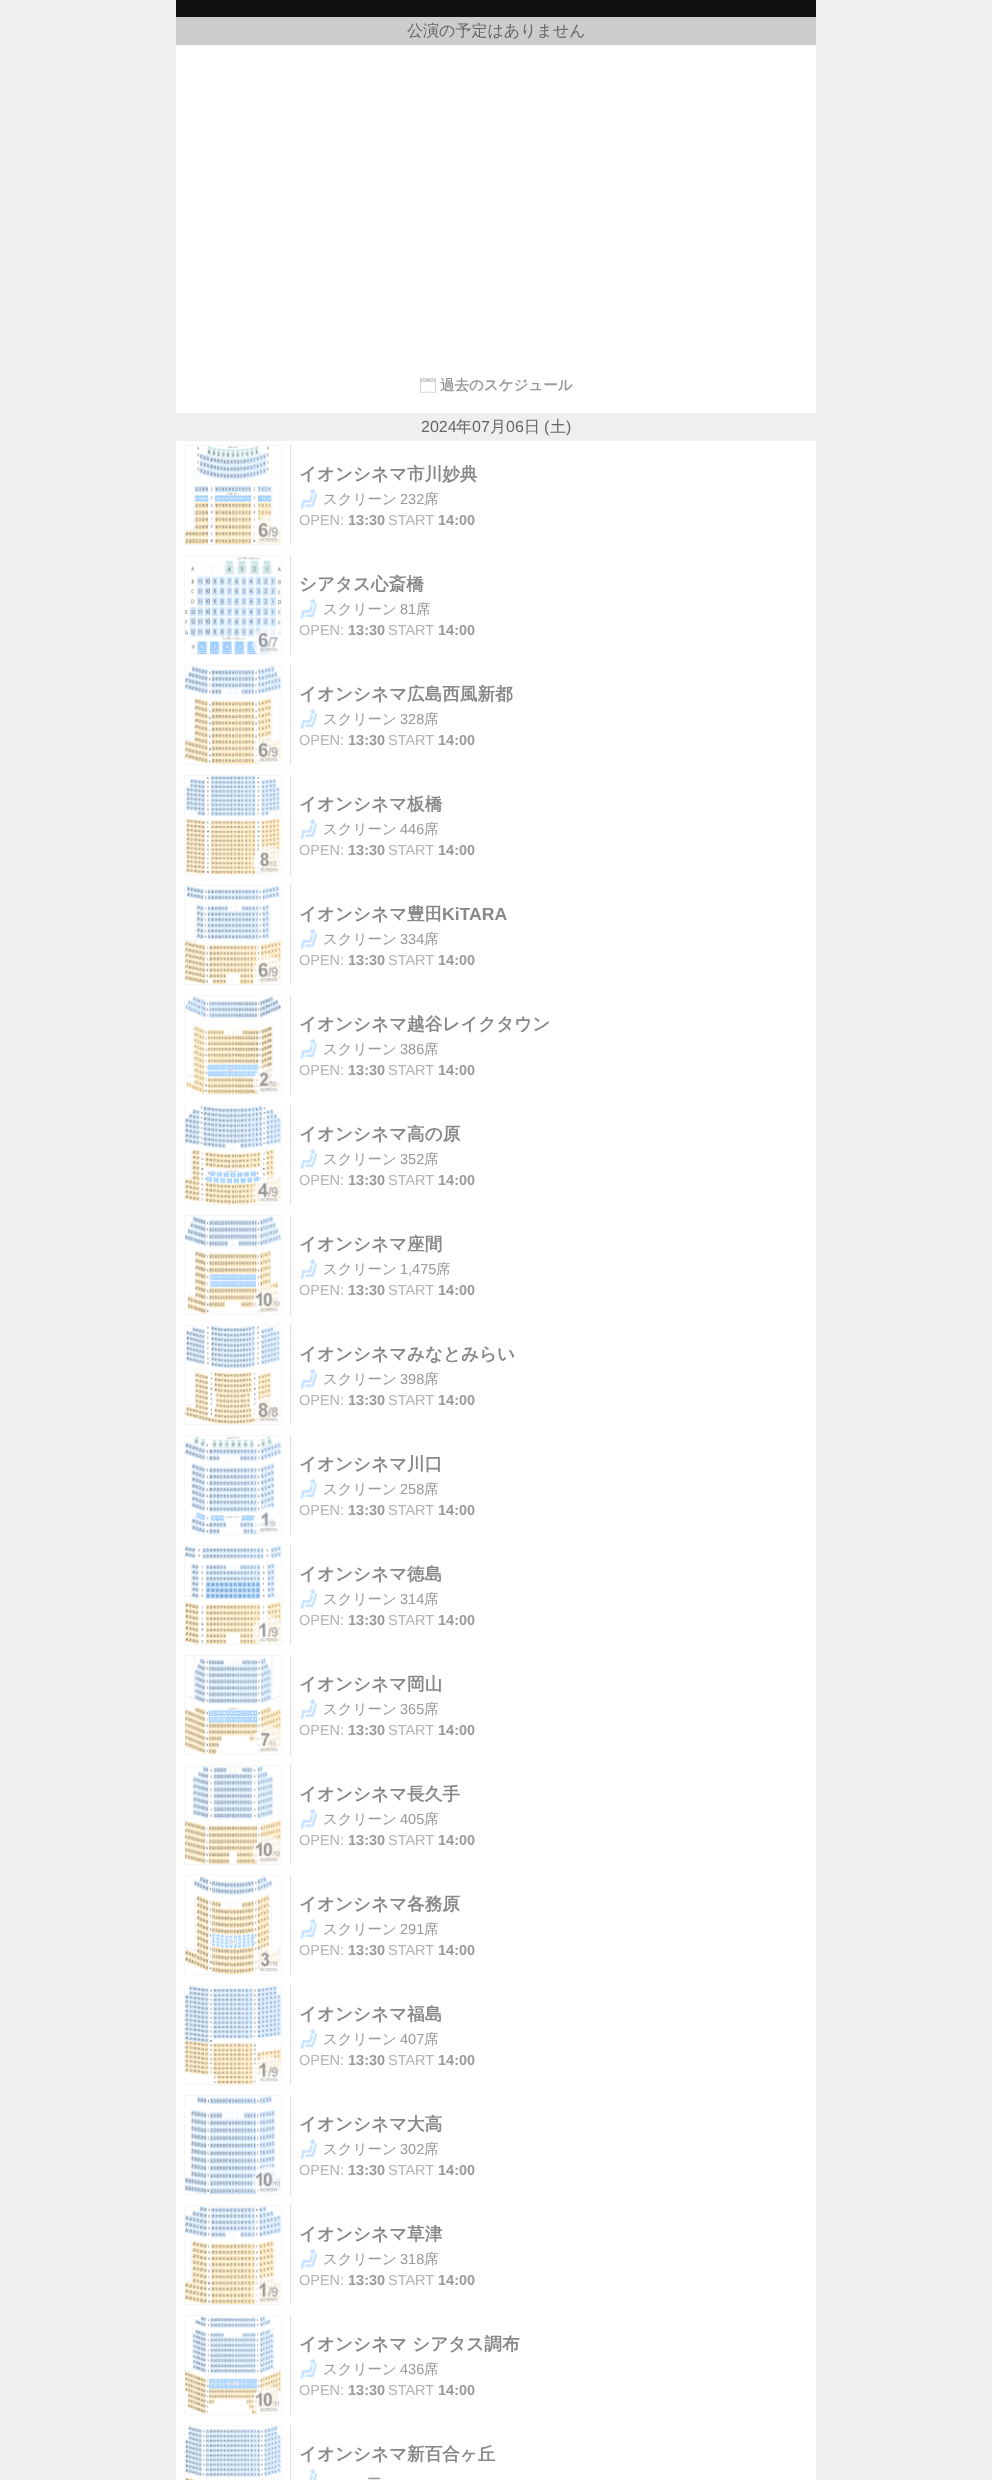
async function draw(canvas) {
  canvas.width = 992
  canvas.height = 2480
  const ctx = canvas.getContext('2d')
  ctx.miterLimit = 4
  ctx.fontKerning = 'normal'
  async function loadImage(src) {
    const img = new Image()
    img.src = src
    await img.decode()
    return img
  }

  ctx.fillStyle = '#efefef'
  ctx.fillRect(0, 0, 992, 2480)
  ctx.fillStyle = '#fff'
  ctx.fillRect(176, 45, 640, 2435)
  ctx.fillStyle = '#111'
  ctx.fillRect(176, 0, 640, 17)
  ctx.fillStyle = '#ccc'
  ctx.fillRect(176, 17, 640, 28)
  ctx.font = '500 16px WenQuanYi Zen Hei'
  ctx.fillStyle = '#666'
  ctx.fillText('公演の予定はありません', 407, 36)
  ctx.drawImage(await loadImage('image0.png'), 420, 377, 16, 16)
  ctx.font = 'bold 14.5px WenQuanYi Zen Hei'
  ctx.fillStyle = '#999'
  ctx.fillText('過去のスケジュール', 440, 390)
  ctx.fillStyle = '#efefef'
  ctx.fillRect(176, 413, 640, 28)
  ctx.font = '16px Liberation Sans'
  ctx.fillStyle = '#666'
  ctx.fillText('2024', 421, 432)
  ctx.font = '500 16px WenQuanYi Zen Hei'
  ctx.fillText('年', 456, 432)
  ctx.font = '16px Liberation Sans'
  ctx.fillText('07', 472, 432)
  ctx.font = '500 16px WenQuanYi Zen Hei'
  ctx.fillText('月', 490, 432)
  ctx.font = '16px Liberation Sans'
  ctx.fillText('06', 506, 432)
  ctx.font = '500 16px WenQuanYi Zen Hei'
  ctx.fillText('日', 524, 432)
  ctx.font = '16px Liberation Sans'
  ctx.fillText('(', 544, 432)
  ctx.font = '500 16px WenQuanYi Zen Hei'
  ctx.fillText('土', 550, 432)
  ctx.font = '16px Liberation Sans'
  ctx.fillText(')', 566, 432)
  ctx.fillStyle = '#ddd'
  ctx.fillRect(290, 445, 1, 100)
  ctx.strokeStyle = '#f7f7f7'
  ctx.strokeRect(184.5, 445.5, 97, 99)
  ctx.drawImage(await loadImage('image1.png'), 185, 446, 96, 98)
  ctx.font = 'bold 17.6px WenQuanYi Zen Hei'
  ctx.fillStyle = '#888'
  ctx.fillText('イオンシネマ市川妙典', 299, 480)
  ctx.drawImage(await loadImage('image2.png'), 300, 489, 18, 20)
  ctx.font = '500 14.5px WenQuanYi Zen Hei'
  ctx.fillStyle = '#999'
  ctx.fillText('スクリーン', 323, 504)
  ctx.font = '14.5px Liberation Sans'
  ctx.fillText('232', 400, 504)
  ctx.font = '500 14.5px WenQuanYi Zen Hei'
  ctx.fillText('席', 424, 504)
  ctx.font = '14.5px Liberation Sans'
  ctx.fillStyle = '#b3b3b3'
  ctx.fillText('OPEN:', 299, 525)
  ctx.font = 'bold 14.5px Liberation Sans'
  ctx.fillStyle = '#999'
  ctx.fillText('13:30', 348, 525)
  ctx.font = '14.5px Liberation Sans'
  ctx.fillStyle = '#b3b3b3'
  ctx.fillText('START', 388, 525)
  ctx.font = 'bold 14.5px Liberation Sans'
  ctx.fillStyle = '#999'
  ctx.fillText('14:00', 438, 525)
  ctx.fillStyle = '#ddd'
  ctx.fillRect(290, 555, 1, 100)
  ctx.strokeRect(184.5, 555.5, 97, 99)
  ctx.drawImage(await loadImage('image3.png'), 185, 556, 96, 98)
  ctx.font = 'bold 17.6px WenQuanYi Zen Hei'
  ctx.fillStyle = '#888'
  ctx.fillText('シアタス心斎橋', 299, 590)
  ctx.drawImage(await loadImage('image2.png'), 300, 599, 18, 20)
  ctx.font = '500 14.5px WenQuanYi Zen Hei'
  ctx.fillStyle = '#999'
  ctx.fillText('スクリーン', 323, 614)
  ctx.font = '14.5px Liberation Sans'
  ctx.fillText('81', 400, 614)
  ctx.font = '500 14.5px WenQuanYi Zen Hei'
  ctx.fillText('席', 416, 614)
  ctx.font = '14.5px Liberation Sans'
  ctx.fillStyle = '#b3b3b3'
  ctx.fillText('OPEN:', 299, 635)
  ctx.font = 'bold 14.5px Liberation Sans'
  ctx.fillStyle = '#999'
  ctx.fillText('13:30', 348, 635)
  ctx.font = '14.5px Liberation Sans'
  ctx.fillStyle = '#b3b3b3'
  ctx.fillText('START', 388, 635)
  ctx.font = 'bold 14.5px Liberation Sans'
  ctx.fillStyle = '#999'
  ctx.fillText('14:00', 438, 635)
  ctx.fillStyle = '#ddd'
  ctx.fillRect(290, 665, 1, 100)
  ctx.strokeRect(184.5, 665.5, 97, 99)
  ctx.drawImage(await loadImage('image4.png'), 185, 666, 96, 98)
  ctx.font = 'bold 17.6px WenQuanYi Zen Hei'
  ctx.fillStyle = '#888'
  ctx.fillText('イオンシネマ広島西風新都', 299, 700)
  ctx.drawImage(await loadImage('image2.png'), 300, 709, 18, 20)
  ctx.font = '500 14.5px WenQuanYi Zen Hei'
  ctx.fillStyle = '#999'
  ctx.fillText('スクリーン', 323, 724)
  ctx.font = '14.5px Liberation Sans'
  ctx.fillText('328', 400, 724)
  ctx.font = '500 14.5px WenQuanYi Zen Hei'
  ctx.fillText('席', 424, 724)
  ctx.font = '14.5px Liberation Sans'
  ctx.fillStyle = '#b3b3b3'
  ctx.fillText('OPEN:', 299, 745)
  ctx.font = 'bold 14.5px Liberation Sans'
  ctx.fillStyle = '#999'
  ctx.fillText('13:30', 348, 745)
  ctx.font = '14.5px Liberation Sans'
  ctx.fillStyle = '#b3b3b3'
  ctx.fillText('START', 388, 745)
  ctx.font = 'bold 14.5px Liberation Sans'
  ctx.fillStyle = '#999'
  ctx.fillText('14:00', 438, 745)
  ctx.fillStyle = '#ddd'
  ctx.fillRect(290, 775, 1, 100)
  ctx.strokeRect(184.5, 775.5, 97, 99)
  ctx.drawImage(await loadImage('image5.png'), 185, 776, 96, 98)
  ctx.font = 'bold 17.6px WenQuanYi Zen Hei'
  ctx.fillStyle = '#888'
  ctx.fillText('イオンシネマ板橋', 299, 810)
  ctx.drawImage(await loadImage('image2.png'), 300, 819, 18, 20)
  ctx.font = '500 14.5px WenQuanYi Zen Hei'
  ctx.fillStyle = '#999'
  ctx.fillText('スクリーン', 323, 834)
  ctx.font = '14.5px Liberation Sans'
  ctx.fillText('446', 400, 834)
  ctx.font = '500 14.5px WenQuanYi Zen Hei'
  ctx.fillText('席', 424, 834)
  ctx.font = '14.5px Liberation Sans'
  ctx.fillStyle = '#b3b3b3'
  ctx.fillText('OPEN:', 299, 855)
  ctx.font = 'bold 14.5px Liberation Sans'
  ctx.fillStyle = '#999'
  ctx.fillText('13:30', 348, 855)
  ctx.font = '14.5px Liberation Sans'
  ctx.fillStyle = '#b3b3b3'
  ctx.fillText('START', 388, 855)
  ctx.font = 'bold 14.5px Liberation Sans'
  ctx.fillStyle = '#999'
  ctx.fillText('14:00', 438, 855)
  ctx.fillStyle = '#ddd'
  ctx.fillRect(290, 885, 1, 100)
  ctx.strokeRect(184.5, 885.5, 97, 99)
  ctx.drawImage(await loadImage('image6.png'), 185, 886, 96, 98)
  ctx.font = 'bold 17.6px WenQuanYi Zen Hei'
  ctx.fillStyle = '#888'
  ctx.fillText('イオンシネマ豊田', 299, 920)
  ctx.font = 'bold 17.6px Liberation Sans'
  ctx.fillText('KiTARA', 442, 920)
  ctx.drawImage(await loadImage('image2.png'), 300, 929, 18, 20)
  ctx.font = '500 14.5px WenQuanYi Zen Hei'
  ctx.fillStyle = '#999'
  ctx.fillText('スクリーン', 323, 944)
  ctx.font = '14.5px Liberation Sans'
  ctx.fillText('334', 400, 944)
  ctx.font = '500 14.5px WenQuanYi Zen Hei'
  ctx.fillText('席', 424, 944)
  ctx.font = '14.5px Liberation Sans'
  ctx.fillStyle = '#b3b3b3'
  ctx.fillText('OPEN:', 299, 965)
  ctx.font = 'bold 14.5px Liberation Sans'
  ctx.fillStyle = '#999'
  ctx.fillText('13:30', 348, 965)
  ctx.font = '14.5px Liberation Sans'
  ctx.fillStyle = '#b3b3b3'
  ctx.fillText('START', 388, 965)
  ctx.font = 'bold 14.5px Liberation Sans'
  ctx.fillStyle = '#999'
  ctx.fillText('14:00', 438, 965)
  ctx.fillStyle = '#ddd'
  ctx.fillRect(290, 995, 1, 100)
  ctx.strokeRect(184.5, 995.5, 97, 99)
  ctx.drawImage(await loadImage('image7.png'), 185, 996, 96, 98)
  ctx.font = 'bold 17.6px WenQuanYi Zen Hei'
  ctx.fillStyle = '#888'
  ctx.fillText('イオンシネマ越谷レイクタウン', 299, 1030)
  ctx.drawImage(await loadImage('image2.png'), 300, 1039, 18, 20)
  ctx.font = '500 14.5px WenQuanYi Zen Hei'
  ctx.fillStyle = '#999'
  ctx.fillText('スクリーン', 323, 1054)
  ctx.font = '14.5px Liberation Sans'
  ctx.fillText('386', 400, 1054)
  ctx.font = '500 14.5px WenQuanYi Zen Hei'
  ctx.fillText('席', 424, 1054)
  ctx.font = '14.5px Liberation Sans'
  ctx.fillStyle = '#b3b3b3'
  ctx.fillText('OPEN:', 299, 1075)
  ctx.font = 'bold 14.5px Liberation Sans'
  ctx.fillStyle = '#999'
  ctx.fillText('13:30', 348, 1075)
  ctx.font = '14.5px Liberation Sans'
  ctx.fillStyle = '#b3b3b3'
  ctx.fillText('START', 388, 1075)
  ctx.font = 'bold 14.5px Liberation Sans'
  ctx.fillStyle = '#999'
  ctx.fillText('14:00', 438, 1075)
  ctx.fillStyle = '#ddd'
  ctx.fillRect(290, 1105, 1, 100)
  ctx.strokeRect(184.5, 1105.5, 97, 99)
  ctx.drawImage(await loadImage('image8.png'), 185, 1106, 96, 98)
  ctx.font = 'bold 17.6px WenQuanYi Zen Hei'
  ctx.fillStyle = '#888'
  ctx.fillText('イオンシネマ高の原', 299, 1140)
  ctx.drawImage(await loadImage('image2.png'), 300, 1149, 18, 20)
  ctx.font = '500 14.5px WenQuanYi Zen Hei'
  ctx.fillStyle = '#999'
  ctx.fillText('スクリーン', 323, 1164)
  ctx.font = '14.5px Liberation Sans'
  ctx.fillText('352', 400, 1164)
  ctx.font = '500 14.5px WenQuanYi Zen Hei'
  ctx.fillText('席', 424, 1164)
  ctx.font = '14.5px Liberation Sans'
  ctx.fillStyle = '#b3b3b3'
  ctx.fillText('OPEN:', 299, 1185)
  ctx.font = 'bold 14.5px Liberation Sans'
  ctx.fillStyle = '#999'
  ctx.fillText('13:30', 348, 1185)
  ctx.font = '14.5px Liberation Sans'
  ctx.fillStyle = '#b3b3b3'
  ctx.fillText('START', 388, 1185)
  ctx.font = 'bold 14.5px Liberation Sans'
  ctx.fillStyle = '#999'
  ctx.fillText('14:00', 438, 1185)
  ctx.fillStyle = '#ddd'
  ctx.fillRect(290, 1215, 1, 100)
  ctx.strokeRect(184.5, 1215.5, 97, 99)
  ctx.drawImage(await loadImage('image9.png'), 185, 1216, 96, 98)
  ctx.font = 'bold 17.6px WenQuanYi Zen Hei'
  ctx.fillStyle = '#888'
  ctx.fillText('イオンシネマ座間', 299, 1250)
  ctx.drawImage(await loadImage('image2.png'), 300, 1259, 18, 20)
  ctx.font = '500 14.5px WenQuanYi Zen Hei'
  ctx.fillStyle = '#999'
  ctx.fillText('スクリーン', 323, 1274)
  ctx.font = '14.5px Liberation Sans'
  ctx.fillText('1,475', 400, 1274)
  ctx.font = '500 14.5px WenQuanYi Zen Hei'
  ctx.fillText('席', 436, 1274)
  ctx.font = '14.5px Liberation Sans'
  ctx.fillStyle = '#b3b3b3'
  ctx.fillText('OPEN:', 299, 1295)
  ctx.font = 'bold 14.5px Liberation Sans'
  ctx.fillStyle = '#999'
  ctx.fillText('13:30', 348, 1295)
  ctx.font = '14.5px Liberation Sans'
  ctx.fillStyle = '#b3b3b3'
  ctx.fillText('START', 388, 1295)
  ctx.font = 'bold 14.5px Liberation Sans'
  ctx.fillStyle = '#999'
  ctx.fillText('14:00', 438, 1295)
  ctx.fillStyle = '#ddd'
  ctx.fillRect(290, 1325, 1, 100)
  ctx.strokeRect(184.5, 1325.5, 97, 99)
  ctx.drawImage(await loadImage('image10.png'), 185, 1326, 96, 98)
  ctx.font = 'bold 17.6px WenQuanYi Zen Hei'
  ctx.fillStyle = '#888'
  ctx.fillText('イオンシネマみなとみらい', 299, 1360)
  ctx.drawImage(await loadImage('image2.png'), 300, 1369, 18, 20)
  ctx.font = '500 14.5px WenQuanYi Zen Hei'
  ctx.fillStyle = '#999'
  ctx.fillText('スクリーン', 323, 1384)
  ctx.font = '14.5px Liberation Sans'
  ctx.fillText('398', 400, 1384)
  ctx.font = '500 14.5px WenQuanYi Zen Hei'
  ctx.fillText('席', 424, 1384)
  ctx.font = '14.5px Liberation Sans'
  ctx.fillStyle = '#b3b3b3'
  ctx.fillText('OPEN:', 299, 1405)
  ctx.font = 'bold 14.5px Liberation Sans'
  ctx.fillStyle = '#999'
  ctx.fillText('13:30', 348, 1405)
  ctx.font = '14.5px Liberation Sans'
  ctx.fillStyle = '#b3b3b3'
  ctx.fillText('START', 388, 1405)
  ctx.font = 'bold 14.5px Liberation Sans'
  ctx.fillStyle = '#999'
  ctx.fillText('14:00', 438, 1405)
  ctx.fillStyle = '#ddd'
  ctx.fillRect(290, 1435, 1, 100)
  ctx.strokeRect(184.5, 1435.5, 97, 99)
  ctx.drawImage(await loadImage('image11.png'), 185, 1436, 96, 98)
  ctx.font = 'bold 17.6px WenQuanYi Zen Hei'
  ctx.fillStyle = '#888'
  ctx.fillText('イオンシネマ川口', 299, 1470)
  ctx.drawImage(await loadImage('image2.png'), 300, 1479, 18, 20)
  ctx.font = '500 14.5px WenQuanYi Zen Hei'
  ctx.fillStyle = '#999'
  ctx.fillText('スクリーン', 323, 1494)
  ctx.font = '14.5px Liberation Sans'
  ctx.fillText('258', 400, 1494)
  ctx.font = '500 14.5px WenQuanYi Zen Hei'
  ctx.fillText('席', 424, 1494)
  ctx.font = '14.5px Liberation Sans'
  ctx.fillStyle = '#b3b3b3'
  ctx.fillText('OPEN:', 299, 1515)
  ctx.font = 'bold 14.5px Liberation Sans'
  ctx.fillStyle = '#999'
  ctx.fillText('13:30', 348, 1515)
  ctx.font = '14.5px Liberation Sans'
  ctx.fillStyle = '#b3b3b3'
  ctx.fillText('START', 388, 1515)
  ctx.font = 'bold 14.5px Liberation Sans'
  ctx.fillStyle = '#999'
  ctx.fillText('14:00', 438, 1515)
  ctx.fillStyle = '#ddd'
  ctx.fillRect(290, 1545, 1, 100)
  ctx.strokeRect(184.5, 1545.5, 97, 99)
  ctx.drawImage(await loadImage('image12.png'), 185, 1546, 96, 98)
  ctx.font = 'bold 17.6px WenQuanYi Zen Hei'
  ctx.fillStyle = '#888'
  ctx.fillText('イオンシネマ徳島', 299, 1580)
  ctx.drawImage(await loadImage('image2.png'), 300, 1589, 18, 20)
  ctx.font = '500 14.5px WenQuanYi Zen Hei'
  ctx.fillStyle = '#999'
  ctx.fillText('スクリーン', 323, 1604)
  ctx.font = '14.5px Liberation Sans'
  ctx.fillText('314', 400, 1604)
  ctx.font = '500 14.5px WenQuanYi Zen Hei'
  ctx.fillText('席', 424, 1604)
  ctx.font = '14.5px Liberation Sans'
  ctx.fillStyle = '#b3b3b3'
  ctx.fillText('OPEN:', 299, 1625)
  ctx.font = 'bold 14.5px Liberation Sans'
  ctx.fillStyle = '#999'
  ctx.fillText('13:30', 348, 1625)
  ctx.font = '14.5px Liberation Sans'
  ctx.fillStyle = '#b3b3b3'
  ctx.fillText('START', 388, 1625)
  ctx.font = 'bold 14.5px Liberation Sans'
  ctx.fillStyle = '#999'
  ctx.fillText('14:00', 438, 1625)
  ctx.fillStyle = '#ddd'
  ctx.fillRect(290, 1655, 1, 100)
  ctx.strokeRect(184.5, 1655.5, 97, 99)
  ctx.drawImage(await loadImage('image13.png'), 185, 1656, 96, 98)
  ctx.font = 'bold 17.6px WenQuanYi Zen Hei'
  ctx.fillStyle = '#888'
  ctx.fillText('イオンシネマ岡山', 299, 1690)
  ctx.drawImage(await loadImage('image2.png'), 300, 1699, 18, 20)
  ctx.font = '500 14.5px WenQuanYi Zen Hei'
  ctx.fillStyle = '#999'
  ctx.fillText('スクリーン', 323, 1714)
  ctx.font = '14.5px Liberation Sans'
  ctx.fillText('365', 400, 1714)
  ctx.font = '500 14.5px WenQuanYi Zen Hei'
  ctx.fillText('席', 424, 1714)
  ctx.font = '14.5px Liberation Sans'
  ctx.fillStyle = '#b3b3b3'
  ctx.fillText('OPEN:', 299, 1735)
  ctx.font = 'bold 14.5px Liberation Sans'
  ctx.fillStyle = '#999'
  ctx.fillText('13:30', 348, 1735)
  ctx.font = '14.5px Liberation Sans'
  ctx.fillStyle = '#b3b3b3'
  ctx.fillText('START', 388, 1735)
  ctx.font = 'bold 14.5px Liberation Sans'
  ctx.fillStyle = '#999'
  ctx.fillText('14:00', 438, 1735)
  ctx.fillStyle = '#ddd'
  ctx.fillRect(290, 1765, 1, 100)
  ctx.strokeRect(184.5, 1765.5, 97, 99)
  ctx.drawImage(await loadImage('image14.png'), 185, 1766, 96, 98)
  ctx.font = 'bold 17.6px WenQuanYi Zen Hei'
  ctx.fillStyle = '#888'
  ctx.fillText('イオンシネマ長久手', 299, 1800)
  ctx.drawImage(await loadImage('image2.png'), 300, 1809, 18, 20)
  ctx.font = '500 14.5px WenQuanYi Zen Hei'
  ctx.fillStyle = '#999'
  ctx.fillText('スクリーン', 323, 1824)
  ctx.font = '14.5px Liberation Sans'
  ctx.fillText('405', 400, 1824)
  ctx.font = '500 14.5px WenQuanYi Zen Hei'
  ctx.fillText('席', 424, 1824)
  ctx.font = '14.5px Liberation Sans'
  ctx.fillStyle = '#b3b3b3'
  ctx.fillText('OPEN:', 299, 1845)
  ctx.font = 'bold 14.5px Liberation Sans'
  ctx.fillStyle = '#999'
  ctx.fillText('13:30', 348, 1845)
  ctx.font = '14.5px Liberation Sans'
  ctx.fillStyle = '#b3b3b3'
  ctx.fillText('START', 388, 1845)
  ctx.font = 'bold 14.5px Liberation Sans'
  ctx.fillStyle = '#999'
  ctx.fillText('14:00', 438, 1845)
  ctx.fillStyle = '#ddd'
  ctx.fillRect(290, 1875, 1, 100)
  ctx.strokeRect(184.5, 1875.5, 97, 99)
  ctx.drawImage(await loadImage('image15.png'), 185, 1876, 96, 98)
  ctx.font = 'bold 17.6px WenQuanYi Zen Hei'
  ctx.fillStyle = '#888'
  ctx.fillText('イオンシネマ各務原', 299, 1910)
  ctx.drawImage(await loadImage('image2.png'), 300, 1919, 18, 20)
  ctx.font = '500 14.5px WenQuanYi Zen Hei'
  ctx.fillStyle = '#999'
  ctx.fillText('スクリーン', 323, 1934)
  ctx.font = '14.5px Liberation Sans'
  ctx.fillText('291', 400, 1934)
  ctx.font = '500 14.5px WenQuanYi Zen Hei'
  ctx.fillText('席', 424, 1934)
  ctx.font = '14.5px Liberation Sans'
  ctx.fillStyle = '#b3b3b3'
  ctx.fillText('OPEN:', 299, 1955)
  ctx.font = 'bold 14.5px Liberation Sans'
  ctx.fillStyle = '#999'
  ctx.fillText('13:30', 348, 1955)
  ctx.font = '14.5px Liberation Sans'
  ctx.fillStyle = '#b3b3b3'
  ctx.fillText('START', 388, 1955)
  ctx.font = 'bold 14.5px Liberation Sans'
  ctx.fillStyle = '#999'
  ctx.fillText('14:00', 438, 1955)
  ctx.fillStyle = '#ddd'
  ctx.fillRect(290, 1985, 1, 100)
  ctx.strokeRect(184.5, 1985.5, 97, 99)
  ctx.drawImage(await loadImage('image16.png'), 185, 1986, 96, 98)
  ctx.font = 'bold 17.6px WenQuanYi Zen Hei'
  ctx.fillStyle = '#888'
  ctx.fillText('イオンシネマ福島', 299, 2020)
  ctx.drawImage(await loadImage('image2.png'), 300, 2029, 18, 20)
  ctx.font = '500 14.5px WenQuanYi Zen Hei'
  ctx.fillStyle = '#999'
  ctx.fillText('スクリーン', 323, 2044)
  ctx.font = '14.5px Liberation Sans'
  ctx.fillText('407', 400, 2044)
  ctx.font = '500 14.5px WenQuanYi Zen Hei'
  ctx.fillText('席', 424, 2044)
  ctx.font = '14.5px Liberation Sans'
  ctx.fillStyle = '#b3b3b3'
  ctx.fillText('OPEN:', 299, 2065)
  ctx.font = 'bold 14.5px Liberation Sans'
  ctx.fillStyle = '#999'
  ctx.fillText('13:30', 348, 2065)
  ctx.font = '14.5px Liberation Sans'
  ctx.fillStyle = '#b3b3b3'
  ctx.fillText('START', 388, 2065)
  ctx.font = 'bold 14.5px Liberation Sans'
  ctx.fillStyle = '#999'
  ctx.fillText('14:00', 438, 2065)
  ctx.fillStyle = '#ddd'
  ctx.fillRect(290, 2095, 1, 100)
  ctx.strokeRect(184.5, 2095.5, 97, 99)
  ctx.drawImage(await loadImage('image17.png'), 185, 2096, 96, 98)
  ctx.font = 'bold 17.6px WenQuanYi Zen Hei'
  ctx.fillStyle = '#888'
  ctx.fillText('イオンシネマ大高', 299, 2130)
  ctx.drawImage(await loadImage('image2.png'), 300, 2139, 18, 20)
  ctx.font = '500 14.5px WenQuanYi Zen Hei'
  ctx.fillStyle = '#999'
  ctx.fillText('スクリーン', 323, 2154)
  ctx.font = '14.5px Liberation Sans'
  ctx.fillText('302', 400, 2154)
  ctx.font = '500 14.5px WenQuanYi Zen Hei'
  ctx.fillText('席', 424, 2154)
  ctx.font = '14.5px Liberation Sans'
  ctx.fillStyle = '#b3b3b3'
  ctx.fillText('OPEN:', 299, 2175)
  ctx.font = 'bold 14.5px Liberation Sans'
  ctx.fillStyle = '#999'
  ctx.fillText('13:30', 348, 2175)
  ctx.font = '14.5px Liberation Sans'
  ctx.fillStyle = '#b3b3b3'
  ctx.fillText('START', 388, 2175)
  ctx.font = 'bold 14.5px Liberation Sans'
  ctx.fillStyle = '#999'
  ctx.fillText('14:00', 438, 2175)
  ctx.fillStyle = '#ddd'
  ctx.fillRect(290, 2205, 1, 100)
  ctx.strokeRect(184.5, 2205.5, 97, 99)
  ctx.drawImage(await loadImage('image18.png'), 185, 2206, 96, 98)
  ctx.font = 'bold 17.6px WenQuanYi Zen Hei'
  ctx.fillStyle = '#888'
  ctx.fillText('イオンシネマ草津', 299, 2240)
  ctx.drawImage(await loadImage('image2.png'), 300, 2249, 18, 20)
  ctx.font = '500 14.5px WenQuanYi Zen Hei'
  ctx.fillStyle = '#999'
  ctx.fillText('スクリーン', 323, 2264)
  ctx.font = '14.5px Liberation Sans'
  ctx.fillText('318', 400, 2264)
  ctx.font = '500 14.5px WenQuanYi Zen Hei'
  ctx.fillText('席', 424, 2264)
  ctx.font = '14.5px Liberation Sans'
  ctx.fillStyle = '#b3b3b3'
  ctx.fillText('OPEN:', 299, 2285)
  ctx.font = 'bold 14.5px Liberation Sans'
  ctx.fillStyle = '#999'
  ctx.fillText('13:30', 348, 2285)
  ctx.font = '14.5px Liberation Sans'
  ctx.fillStyle = '#b3b3b3'
  ctx.fillText('START', 388, 2285)
  ctx.font = 'bold 14.5px Liberation Sans'
  ctx.fillStyle = '#999'
  ctx.fillText('14:00', 438, 2285)
  ctx.fillStyle = '#ddd'
  ctx.fillRect(290, 2315, 1, 100)
  ctx.strokeRect(184.5, 2315.5, 97, 99)
  ctx.drawImage(await loadImage('image19.png'), 185, 2316, 96, 98)
  ctx.font = 'bold 17.6px WenQuanYi Zen Hei'
  ctx.fillStyle = '#888'
  ctx.fillText('イオンシネマ シアタス調布', 299, 2350)
  ctx.drawImage(await loadImage('image2.png'), 300, 2359, 18, 20)
  ctx.font = '500 14.5px WenQuanYi Zen Hei'
  ctx.fillStyle = '#999'
  ctx.fillText('スクリーン', 323, 2374)
  ctx.font = '14.5px Liberation Sans'
  ctx.fillText('436', 400, 2374)
  ctx.font = '500 14.5px WenQuanYi Zen Hei'
  ctx.fillText('席', 424, 2374)
  ctx.font = '14.5px Liberation Sans'
  ctx.fillStyle = '#b3b3b3'
  ctx.fillText('OPEN:', 299, 2395)
  ctx.font = 'bold 14.5px Liberation Sans'
  ctx.fillStyle = '#999'
  ctx.fillText('13:30', 348, 2395)
  ctx.font = '14.5px Liberation Sans'
  ctx.fillStyle = '#b3b3b3'
  ctx.fillText('START', 388, 2395)
  ctx.font = 'bold 14.5px Liberation Sans'
  ctx.fillStyle = '#999'
  ctx.fillText('14:00', 438, 2395)
  ctx.fillStyle = '#ddd'
  ctx.fillRect(290, 2425, 1, 55)
  ctx.strokeRect(184.5, 2425.5, 97, 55)
  ctx.drawImage(await loadImage('image20.png'), 185, 2426, 96, 54)
  ctx.font = 'bold 17.6px WenQuanYi Zen Hei'
  ctx.fillStyle = '#888'
  ctx.fillText('イオンシネマ新百合ヶ丘', 299, 2460)
  ctx.drawImage(await loadImage('image21.png'), 309, 2469, 9, 11)
  ctx.font = '500 14.5px WenQuanYi Zen Hei'
  ctx.fillStyle = '#999'
  ctx.fillText('ー', 367, 2484)
}

draw(document.querySelector('canvas'))
